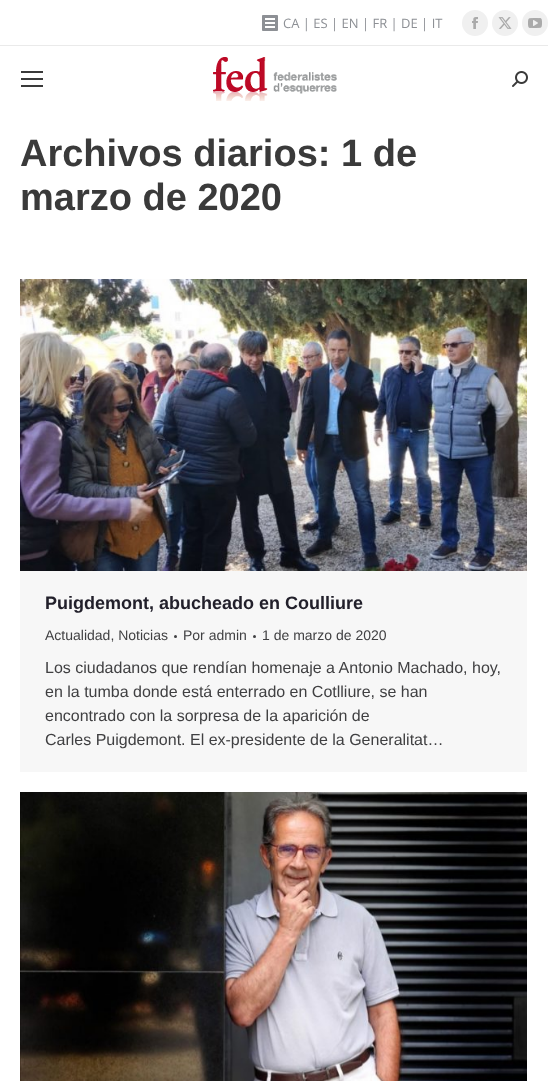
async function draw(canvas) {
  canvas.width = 548
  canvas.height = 1081
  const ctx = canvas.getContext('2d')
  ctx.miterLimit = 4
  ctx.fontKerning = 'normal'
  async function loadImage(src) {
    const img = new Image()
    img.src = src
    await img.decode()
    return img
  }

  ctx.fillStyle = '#fff'
  ctx.fillRect(0, 0, 548, 1081)
  ctx.drawImage(await loadImage('image0.png'), 262, 15, 16, 16)
  ctx.font = '13px Open Sans'
  ctx.fillStyle = '#8d9095'
  ctx.fillText('CA | ES | EN | FR | DE | IT', 283, 28)
  ctx.fillStyle = '#f0f0f0'
  ctx.beginPath()
  ctx.arc(475, 23, 13, 0, 2 * Math.PI)
  ctx.fill()
  ctx.drawImage(await loadImage('image1.png'), 472, 17, 6, 12)
  ctx.beginPath()
  ctx.arc(505, 23, 13, 0, 2 * Math.PI)
  ctx.fill()
  ctx.drawImage(await loadImage('image2.png'), 498, 17, 14, 12)
  ctx.beginPath()
  ctx.arc(535, 23, 13, 0, 2 * Math.PI)
  ctx.fill()
  ctx.drawImage(await loadImage('image3.png'), 528, 18, 14, 10)
  ctx.fillStyle = '#eaeaea'
  ctx.fillRect(0, 45, 548, 1)
  ctx.fillStyle = '#3a3a3a'
  ctx.fillRect(21, 71, 22, 2)
  ctx.fillRect(21, 78, 22, 2)
  ctx.fillRect(21, 85, 22, 2)
  ctx.drawImage(await loadImage('image4.png'), 213, 57, 124, 44)
  ctx.drawImage(await loadImage('image5.png'), 512, 71, 16, 16)
  ctx.font = 'bold 38px Liberation Sans'
  ctx.fillText('Archivos diarios: 1 de', 20, 166)
  ctx.fillText('marzo de 2020', 20, 210)
  ctx.fillStyle = '#f7f7f7'
  ctx.fillRect(20, 571, 507, 201)
  ctx.drawImage(await loadImage('image6.png'), 20, 279, 507, 292)
  ctx.font = 'bold 18px Liberation Sans'
  ctx.fillStyle = '#22202b'
  ctx.fillText('Puigdemont, abucheado en Coulliure', 45, 609)
  ctx.font = '14px Liberation Sans'
  ctx.fillStyle = '#404042'
  ctx.fillText('Actualidad, Noticias', 45, 640)
  ctx.beginPath()
  ctx.arc(175.5, 636.5, 1.5, 0, 2 * Math.PI)
  ctx.fill()
  ctx.fillText('Por admin', 183, 640)
  ctx.beginPath()
  ctx.arc(254.5, 636.5, 1.5, 0, 2 * Math.PI)
  ctx.fill()
  ctx.fillText('1 de marzo de 2020', 262, 640)
  ctx.font = '16px Liberation Sans'
  ctx.fillText('Los ciudadanos que rendían homenaje a Antonio Machado, hoy,', 45, 673)
  ctx.fillText('en la tumba donde está enterrado en Cotlliure, se han', 45, 697)
  ctx.fillText('encontrado con la sorpresa de la aparición de', 45, 721)
  ctx.fillText('Carles Puigdemont. El ex-presidente de la Generalitat…', 45, 745)
  ctx.drawImage(await loadImage('image7.png'), 20, 792, 507, 289)
}

draw(document.querySelector('canvas'))
